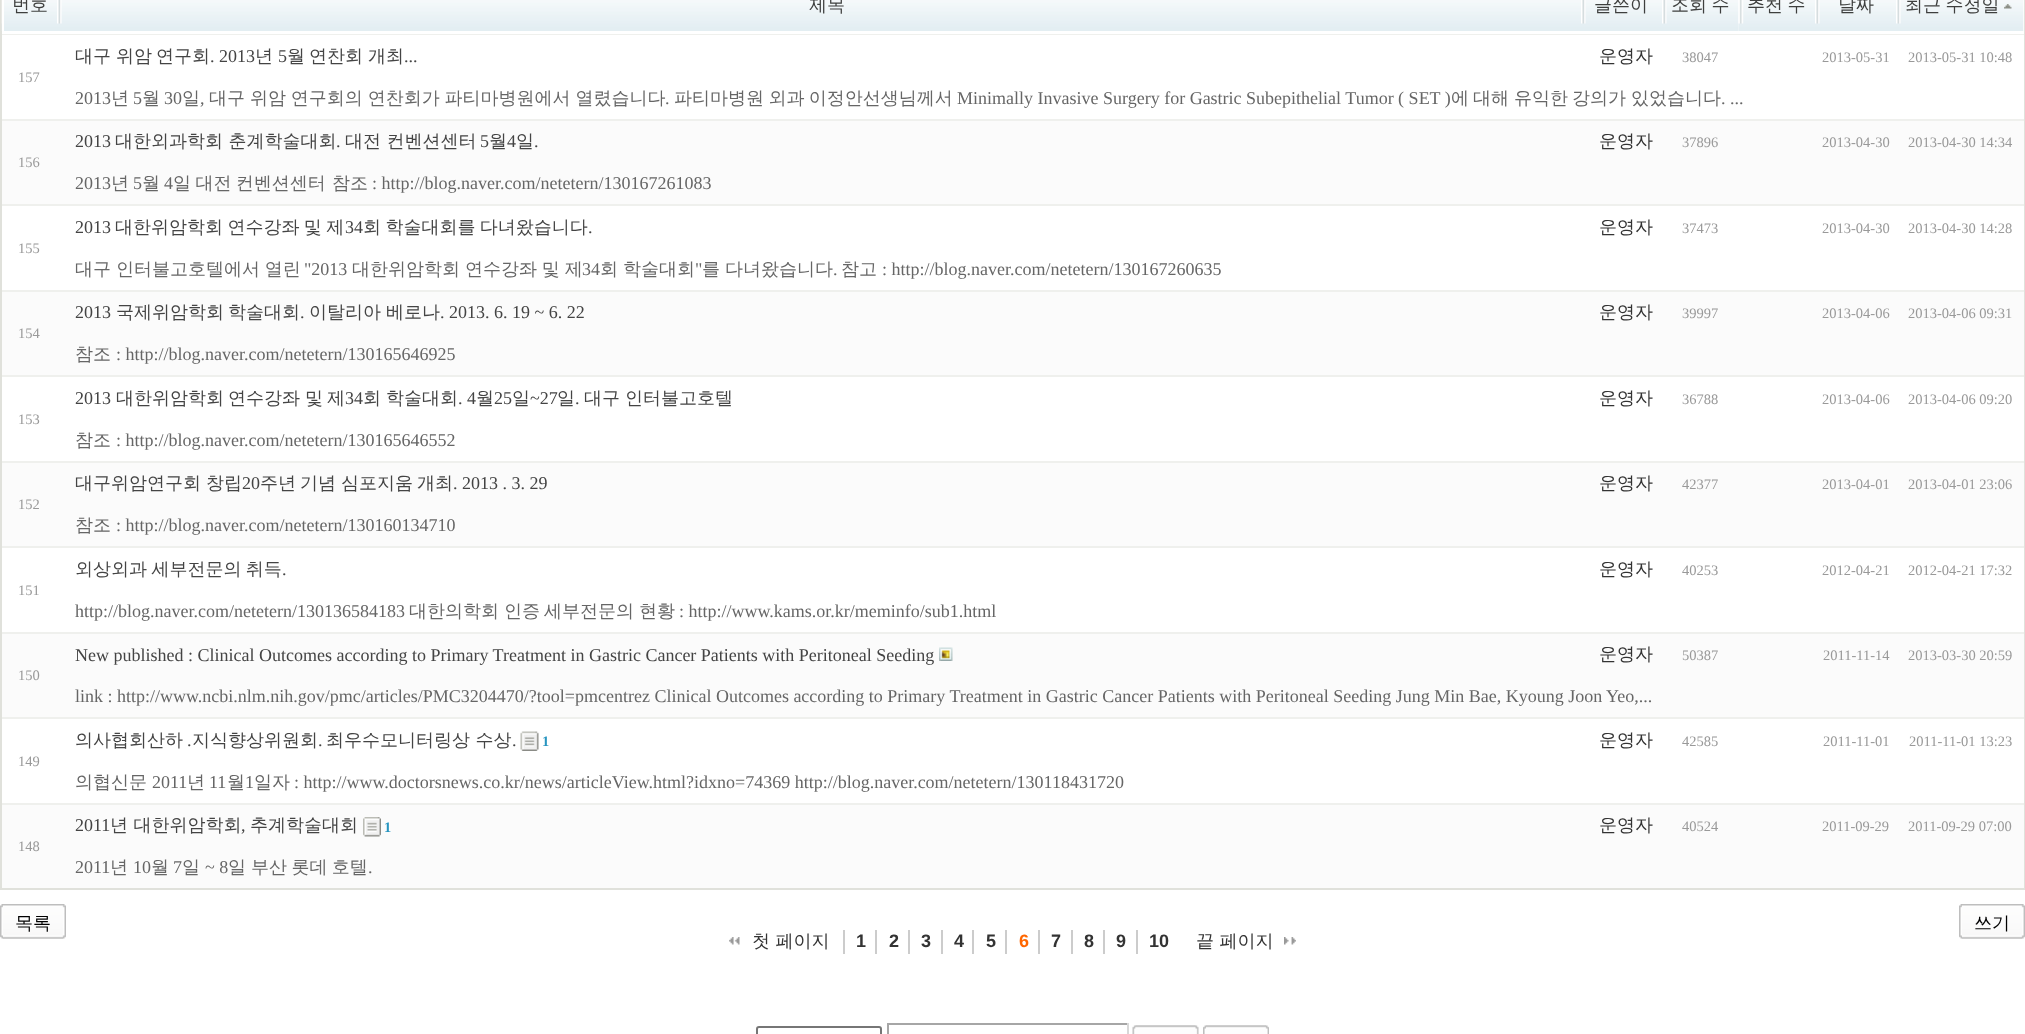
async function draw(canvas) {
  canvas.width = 2025
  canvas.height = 1034
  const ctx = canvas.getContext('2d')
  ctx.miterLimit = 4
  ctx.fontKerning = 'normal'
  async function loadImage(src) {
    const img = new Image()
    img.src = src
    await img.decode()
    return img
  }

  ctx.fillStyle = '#fff'
  ctx.fillRect(0, 0, 2025, 1034)
  ctx.fillStyle = '#e0e1db'
  ctx.fillRect(2024, 0, 1, 890)
  ctx.fillRect(0, 888, 2025, 2)
  ctx.fillRect(0, 0, 2, 890)
  ctx.drawImage(await loadImage('image0.png'), 1, 0, 56, 31)
  ctx.fillStyle = '#fff'
  ctx.fillRect(2, 0, 2, 33)
  ctx.font = '500 18px WenQuanYi Zen Hei'
  ctx.fillStyle = '#3e3f3e'
  ctx.fillText('번호', 12, 11)
  ctx.drawImage(await loadImage('image1.png'), 57, 0, 1524, 31)
  ctx.fillText('제목', 809, 11)
  ctx.drawImage(await loadImage('image2.png'), 1581, 0, 81, 31)
  ctx.fillText('글쓴이', 1594, 11)
  ctx.drawImage(await loadImage('image3.png'), 1662, 0, 77, 31)
  ctx.wordSpacing = '-1px'
  ctx.fillText('조회 수', 1671, 11)
  ctx.drawImage(await loadImage('image4.png'), 1738, 0, 77, 31)
  ctx.fillText('추천 수', 1747, 11)
  ctx.drawImage(await loadImage('image2.png'), 1815, 0, 81, 31)
  ctx.wordSpacing = '0px'
  ctx.fillText('날짜', 1838, 11)
  ctx.drawImage(await loadImage('image5.png'), 1896, 0, 128, 31)
  ctx.wordSpacing = '-1px'
  ctx.fillText('최근 수정일', 1905, 11)
  ctx.drawImage(await loadImage('image6.png'), 2004, 4, 8, 5)
  ctx.wordSpacing = '0px'
  ctx.fillStyle = '#444'
  ctx.fillText('대구', 75, 62)
  ctx.fillText('위암', 116, 62)
  ctx.fillText('연구회', 156, 62)
  ctx.font = '18px Liberation Serif'
  ctx.fillText('. 2013', 210, 62)
  ctx.font = '500 18px WenQuanYi Zen Hei'
  ctx.fillText('년', 255, 62)
  ctx.font = '18px Liberation Serif'
  ctx.fillText('5', 278, 62)
  ctx.font = '500 18px WenQuanYi Zen Hei'
  ctx.fillText('월', 287, 62)
  ctx.fillText('연찬회', 309, 62)
  ctx.fillText('개최', 368, 62)
  ctx.font = '18px Liberation Serif'
  ctx.fillText('...', 404, 62)
  ctx.font = '500 18px WenQuanYi Zen Hei'
  ctx.fillStyle = '#333'
  ctx.fillText('운영자', 1599, 62)
  ctx.font = '14.5px Liberation Serif'
  ctx.fillStyle = '#999'
  ctx.fillText('38047', 1682, 62)
  ctx.fillText('2013-05-31', 1822, 62)
  ctx.fillText('2013-05-31 10:48', 1908, 62)
  ctx.fillStyle = '#eff0ed'
  ctx.fillRect(2, 34, 2022, 1)
  ctx.fillStyle = '#999'
  ctx.fillText('157', 18, 82)
  ctx.font = '18px Liberation Serif'
  ctx.fillStyle = '#666'
  ctx.fillText('2013', 75, 104)
  ctx.font = '500 18px WenQuanYi Zen Hei'
  ctx.fillText('년', 111, 104)
  ctx.font = '18px Liberation Serif'
  ctx.fillText('5', 133, 104)
  ctx.font = '500 18px WenQuanYi Zen Hei'
  ctx.fillText('월', 142, 104)
  ctx.font = '18px Liberation Serif'
  ctx.fillText('30', 164, 104)
  ctx.font = '500 18px WenQuanYi Zen Hei'
  ctx.fillText('일', 182, 104)
  ctx.font = '18px Liberation Serif'
  ctx.fillText(',', 200, 104)
  ctx.wordSpacing = '-0.5px'
  ctx.font = '500 18px WenQuanYi Zen Hei'
  ctx.fillText('대구 위암 연구회의 연찬회가 파티마병원에서 열렸습니다', 209, 104)
  ctx.wordSpacing = '0px'
  ctx.font = '18px Liberation Serif'
  ctx.fillText('.', 665, 104)
  ctx.wordSpacing = '-1px'
  ctx.font = '500 18px WenQuanYi Zen Hei'
  ctx.fillText('파티마병원 외과 이정안선생님께서', 674, 104)
  ctx.wordSpacing = '0px'
  ctx.font = '18px Liberation Serif'
  ctx.fillText('Minimally Invasive Surgery for Gastric Subepithelial Tumor ( SET )', 957, 104)
  ctx.font = '500 18px WenQuanYi Zen Hei'
  ctx.fillText('에', 1451, 104)
  ctx.fillText('대해', 1473, 104)
  ctx.fillText('유익한', 1514, 104)
  ctx.fillText('강의가', 1572, 104)
  ctx.fillText('있었습니다', 1631, 104)
  ctx.font = '18px Liberation Serif'
  ctx.fillText('. ...', 1721, 104)
  ctx.fillStyle = '#fbfbfb'
  ctx.fillRect(2, 121, 2022, 83)
  ctx.fillStyle = '#444'
  ctx.fillText('2013', 75, 147)
  ctx.font = '500 18px WenQuanYi Zen Hei'
  ctx.fillText('대한외과학회 춘계학술대회', 115, 147)
  ctx.font = '18px Liberation Serif'
  ctx.fillText('.', 336, 147)
  ctx.font = '500 18px WenQuanYi Zen Hei'
  ctx.fillText('대전 컨벤션센터', 345, 147)
  ctx.font = '18px Liberation Serif'
  ctx.fillText('5', 480, 147)
  ctx.font = '500 18px WenQuanYi Zen Hei'
  ctx.fillText('월', 489, 147)
  ctx.font = '18px Liberation Serif'
  ctx.fillText('4', 507, 147)
  ctx.font = '500 18px WenQuanYi Zen Hei'
  ctx.fillText('일', 516, 147)
  ctx.font = '18px Liberation Serif'
  ctx.fillText('.', 534, 147)
  ctx.font = '500 18px WenQuanYi Zen Hei'
  ctx.fillStyle = '#333'
  ctx.fillText('운영자', 1599, 147)
  ctx.font = '14.5px Liberation Serif'
  ctx.fillStyle = '#999'
  ctx.fillText('37896', 1682, 147)
  ctx.fillText('2013-04-30', 1822, 147)
  ctx.fillText('2013-04-30 14:34', 1908, 147)
  ctx.fillStyle = '#eff0ed'
  ctx.fillRect(2, 119, 2022, 2)
  ctx.fillStyle = '#999'
  ctx.fillText('156', 18, 167)
  ctx.font = '18px Liberation Serif'
  ctx.fillStyle = '#666'
  ctx.fillText('2013', 75, 189)
  ctx.font = '500 18px WenQuanYi Zen Hei'
  ctx.fillText('년', 111, 189)
  ctx.font = '18px Liberation Serif'
  ctx.fillText('5', 133, 189)
  ctx.font = '500 18px WenQuanYi Zen Hei'
  ctx.fillText('월', 142, 189)
  ctx.font = '18px Liberation Serif'
  ctx.fillText('4', 164, 189)
  ctx.wordSpacing = '-1px'
  ctx.font = '500 18px WenQuanYi Zen Hei'
  ctx.fillText('일 대전 컨벤션센터', 173, 189)
  ctx.wordSpacing = '0px'
  ctx.fillText('참조', 332, 189)
  ctx.font = '18px Liberation Serif'
  ctx.fillText(': http://blog.naver.com/netetern/130167261083', 372, 189)
  ctx.fillStyle = '#444'
  ctx.fillText('2013', 75, 233)
  ctx.wordSpacing = '-1px'
  ctx.font = '500 18px WenQuanYi Zen Hei'
  ctx.fillText('대한위암학회 연수강좌 및 제', 115, 233)
  ctx.wordSpacing = '0px'
  ctx.font = '18px Liberation Serif'
  ctx.fillText('34', 345, 233)
  ctx.wordSpacing = '-1px'
  ctx.font = '500 18px WenQuanYi Zen Hei'
  ctx.fillText('회 학술대회를 다녀왔습니다', 363, 233)
  ctx.wordSpacing = '0px'
  ctx.font = '18px Liberation Serif'
  ctx.fillText('.', 588, 233)
  ctx.font = '500 18px WenQuanYi Zen Hei'
  ctx.fillStyle = '#333'
  ctx.fillText('운영자', 1599, 233)
  ctx.font = '14.5px Liberation Serif'
  ctx.fillStyle = '#999'
  ctx.fillText('37473', 1682, 233)
  ctx.fillText('2013-04-30', 1822, 233)
  ctx.fillText('2013-04-30 14:28', 1908, 233)
  ctx.fillStyle = '#eff0ed'
  ctx.fillRect(2, 204, 2022, 2)
  ctx.fillStyle = '#999'
  ctx.fillText('155', 18, 253)
  ctx.wordSpacing = '-0.5px'
  ctx.font = '500 18px WenQuanYi Zen Hei'
  ctx.fillStyle = '#666'
  ctx.fillText('대구 인터불고호텔에서 열린', 75, 275)
  ctx.wordSpacing = '0px'
  ctx.font = '18px Liberation Serif'
  ctx.fillText('"2013', 304, 275)
  ctx.wordSpacing = '-0.5px'
  ctx.font = '500 18px WenQuanYi Zen Hei'
  ctx.fillText('대한위암학회 연수강좌 및 제', 352, 275)
  ctx.wordSpacing = '0px'
  ctx.font = '18px Liberation Serif'
  ctx.fillText('34', 582, 275)
  ctx.wordSpacing = '-0.5px'
  ctx.font = '500 18px WenQuanYi Zen Hei'
  ctx.fillText('회 학술대회', 600, 275)
  ctx.wordSpacing = '0px'
  ctx.font = '18px Liberation Serif'
  ctx.fillText('"', 695, 275)
  ctx.wordSpacing = '-0.5px'
  ctx.font = '500 18px WenQuanYi Zen Hei'
  ctx.fillText('를 다녀왔습니다', 702, 275)
  ctx.wordSpacing = '0px'
  ctx.fillText('참고', 841, 275)
  ctx.font = '18px Liberation Serif'
  ctx.fillText(': http://blog.naver.com/netetern/130167260635', 882, 275)
  ctx.fillText('.', 833, 275)
  ctx.fillStyle = '#fbfbfb'
  ctx.fillRect(2, 292, 2022, 83)
  ctx.fillStyle = '#444'
  ctx.fillText('2013', 75, 318)
  ctx.font = '500 18px WenQuanYi Zen Hei'
  ctx.fillText('국제위암학회', 116, 318)
  ctx.fillText('학술대회', 228, 318)
  ctx.font = '18px Liberation Serif'
  ctx.fillText('.', 300, 318)
  ctx.font = '500 18px WenQuanYi Zen Hei'
  ctx.fillText('이탈리아', 309, 318)
  ctx.fillText('베로나', 386, 318)
  ctx.font = '18px Liberation Serif'
  ctx.fillText('. 2013. 6. 19 ~ 6. 22', 440, 318)
  ctx.font = '500 18px WenQuanYi Zen Hei'
  ctx.fillStyle = '#333'
  ctx.fillText('운영자', 1599, 318)
  ctx.font = '14.5px Liberation Serif'
  ctx.fillStyle = '#999'
  ctx.fillText('39997', 1682, 318)
  ctx.fillText('2013-04-06', 1822, 318)
  ctx.fillText('2013-04-06 09:31', 1908, 318)
  ctx.fillStyle = '#eff0ed'
  ctx.fillRect(2, 290, 2022, 2)
  ctx.fillStyle = '#999'
  ctx.fillText('154', 18, 338)
  ctx.font = '500 18px WenQuanYi Zen Hei'
  ctx.fillStyle = '#666'
  ctx.fillText('참조', 75, 360)
  ctx.font = '18px Liberation Serif'
  ctx.fillText(': http://blog.naver.com/netetern/130165646925', 116, 360)
  ctx.fillStyle = '#444'
  ctx.fillText('2013', 75, 404)
  ctx.font = '500 18px WenQuanYi Zen Hei'
  ctx.fillText('대한위암학회', 116, 404)
  ctx.fillText('연수강좌', 228, 404)
  ctx.fillText('및', 305, 404)
  ctx.fillText('제', 327, 404)
  ctx.font = '18px Liberation Serif'
  ctx.fillText('34', 345, 404)
  ctx.font = '500 18px WenQuanYi Zen Hei'
  ctx.fillText('회', 363, 404)
  ctx.fillText('학술대회', 386, 404)
  ctx.font = '18px Liberation Serif'
  ctx.fillText('. 4', 458, 404)
  ctx.font = '500 18px WenQuanYi Zen Hei'
  ctx.fillText('월', 476, 404)
  ctx.font = '18px Liberation Serif'
  ctx.fillText('25', 494, 404)
  ctx.font = '500 18px WenQuanYi Zen Hei'
  ctx.fillText('일', 512, 404)
  ctx.font = '18px Liberation Serif'
  ctx.fillText('~27', 530, 404)
  ctx.font = '500 18px WenQuanYi Zen Hei'
  ctx.fillText('일', 557, 404)
  ctx.font = '18px Liberation Serif'
  ctx.fillText('.', 575, 404)
  ctx.font = '500 18px WenQuanYi Zen Hei'
  ctx.fillText('대구', 584, 404)
  ctx.fillText('인터불고호텔', 625, 404)
  ctx.fillStyle = '#333'
  ctx.fillText('운영자', 1599, 404)
  ctx.font = '14.5px Liberation Serif'
  ctx.fillStyle = '#999'
  ctx.fillText('36788', 1682, 404)
  ctx.fillText('2013-04-06', 1822, 404)
  ctx.fillText('2013-04-06 09:20', 1908, 404)
  ctx.fillStyle = '#eff0ed'
  ctx.fillRect(2, 375, 2022, 2)
  ctx.fillStyle = '#999'
  ctx.fillText('153', 18, 424)
  ctx.font = '500 18px WenQuanYi Zen Hei'
  ctx.fillStyle = '#666'
  ctx.fillText('참조', 75, 446)
  ctx.font = '18px Liberation Serif'
  ctx.fillText(': http://blog.naver.com/netetern/130165646552', 116, 446)
  ctx.fillStyle = '#fbfbfb'
  ctx.fillRect(2, 463, 2022, 83)
  ctx.font = '500 18px WenQuanYi Zen Hei'
  ctx.fillStyle = '#444'
  ctx.fillText('대구위암연구회', 75, 489)
  ctx.fillText('창립', 206, 489)
  ctx.font = '18px Liberation Serif'
  ctx.fillText('20', 242, 489)
  ctx.font = '500 18px WenQuanYi Zen Hei'
  ctx.fillText('주년', 260, 489)
  ctx.fillText('기념', 300, 489)
  ctx.fillText('심포지움', 341, 489)
  ctx.fillText('개최', 417, 489)
  ctx.font = '18px Liberation Serif'
  ctx.fillText('. 2013 . 3. 29', 453, 489)
  ctx.font = '500 18px WenQuanYi Zen Hei'
  ctx.fillStyle = '#333'
  ctx.fillText('운영자', 1599, 489)
  ctx.font = '14.5px Liberation Serif'
  ctx.fillStyle = '#999'
  ctx.fillText('42377', 1682, 489)
  ctx.fillText('2013-04-01', 1822, 489)
  ctx.fillText('2013-04-01 23:06', 1908, 489)
  ctx.fillStyle = '#eff0ed'
  ctx.fillRect(2, 461, 2022, 2)
  ctx.fillStyle = '#999'
  ctx.fillText('152', 18, 509)
  ctx.font = '500 18px WenQuanYi Zen Hei'
  ctx.fillStyle = '#666'
  ctx.fillText('참조', 75, 531)
  ctx.font = '18px Liberation Serif'
  ctx.fillText(': http://blog.naver.com/netetern/130160134710', 116, 531)
  ctx.wordSpacing = '-1px'
  ctx.font = '500 18px WenQuanYi Zen Hei'
  ctx.fillStyle = '#444'
  ctx.fillText('외상외과 세부전문의 취득', 75, 575)
  ctx.wordSpacing = '0px'
  ctx.font = '18px Liberation Serif'
  ctx.fillText('.', 282, 575)
  ctx.font = '500 18px WenQuanYi Zen Hei'
  ctx.fillStyle = '#333'
  ctx.fillText('운영자', 1599, 575)
  ctx.font = '14.5px Liberation Serif'
  ctx.fillStyle = '#999'
  ctx.fillText('40253', 1682, 575)
  ctx.fillText('2012-04-21', 1822, 575)
  ctx.fillText('2012-04-21 17:32', 1908, 575)
  ctx.fillStyle = '#eff0ed'
  ctx.fillRect(2, 546, 2022, 2)
  ctx.fillStyle = '#999'
  ctx.fillText('151', 18, 595)
  ctx.font = '18px Liberation Serif'
  ctx.fillStyle = '#666'
  ctx.fillText('http://blog.naver.com/netetern/130136584183', 75, 617)
  ctx.font = '500 18px WenQuanYi Zen Hei'
  ctx.fillText('대한의학회', 409, 617)
  ctx.fillText('인증', 504, 617)
  ctx.fillText('세부전문의', 544, 617)
  ctx.fillText('현황', 639, 617)
  ctx.font = '18px Liberation Serif'
  ctx.fillText(': http://www.kams.or.kr/meminfo/sub1.html', 679, 617)
  ctx.fillStyle = '#fbfbfb'
  ctx.fillRect(2, 634, 2022, 83)
  ctx.fillStyle = '#444'
  ctx.fillText('New published : Clinical Outcomes according to Primary Treatment in Gastric Cancer Patients with Peritoneal Seeding', 75, 661)
  ctx.drawImage(await loadImage('image7.png'), 939, 647, 14, 14)
  ctx.font = '500 18px WenQuanYi Zen Hei'
  ctx.fillStyle = '#333'
  ctx.fillText('운영자', 1599, 660)
  ctx.font = '14.5px Liberation Serif'
  ctx.fillStyle = '#999'
  ctx.fillText('50387', 1682, 660)
  ctx.fillText('2011-11-14', 1823, 660)
  ctx.fillText('2013-03-30 20:59', 1908, 660)
  ctx.fillStyle = '#eff0ed'
  ctx.fillRect(2, 632, 2022, 2)
  ctx.fillStyle = '#999'
  ctx.fillText('150', 18, 680)
  ctx.font = '18px Liberation Serif'
  ctx.fillStyle = '#666'
  ctx.fillText('link : http://www.ncbi.nlm.nih.gov/pmc/articles/PMC3204470/?tool=pmcentrez Clinical Outcomes according to Primary Treatment in Gastric Cancer Patients with Peritoneal Seeding Jung Min Bae, Kyoung Joon Yeo,...', 75, 702)
  ctx.font = '500 18px WenQuanYi Zen Hei'
  ctx.fillStyle = '#444'
  ctx.fillText('의사협회산하', 75, 746)
  ctx.font = '18px Liberation Serif'
  ctx.fillText('.', 187, 746)
  ctx.font = '500 18px WenQuanYi Zen Hei'
  ctx.fillText('지식향상위원회', 192, 746)
  ctx.font = '18px Liberation Serif'
  ctx.fillText('.', 318, 746)
  ctx.font = '500 18px WenQuanYi Zen Hei'
  ctx.fillText('최우수모니터링상 수상', 326, 746)
  ctx.font = '18px Liberation Serif'
  ctx.fillText('.', 512, 746)
  ctx.drawImage(await loadImage('image8.png'), 520, 731, 19, 20)
  ctx.font = 'bold 14.5px Liberation Serif'
  ctx.fillStyle = '#2895c0'
  ctx.fillText('1', 542, 746)
  ctx.font = '500 18px WenQuanYi Zen Hei'
  ctx.fillStyle = '#333'
  ctx.fillText('운영자', 1599, 746)
  ctx.font = '14.5px Liberation Serif'
  ctx.fillStyle = '#999'
  ctx.fillText('42585', 1682, 746)
  ctx.fillText('2011-11-01', 1823, 746)
  ctx.fillText('2011-11-01 13:23', 1909, 746)
  ctx.fillStyle = '#eff0ed'
  ctx.fillRect(2, 717, 2022, 2)
  ctx.fillStyle = '#999'
  ctx.fillText('149', 18, 766)
  ctx.font = '500 18px WenQuanYi Zen Hei'
  ctx.fillStyle = '#666'
  ctx.fillText('의협신문', 75, 788)
  ctx.font = '18px Liberation Serif'
  ctx.fillText('2011', 152, 788)
  ctx.font = '500 18px WenQuanYi Zen Hei'
  ctx.fillText('년', 187, 788)
  ctx.font = '18px Liberation Serif'
  ctx.fillText('11', 209, 788)
  ctx.font = '500 18px WenQuanYi Zen Hei'
  ctx.fillText('월', 227, 788)
  ctx.font = '18px Liberation Serif'
  ctx.fillText('1', 245, 788)
  ctx.font = '500 18px WenQuanYi Zen Hei'
  ctx.fillText('일자', 254, 788)
  ctx.font = '18px Liberation Serif'
  ctx.fillText(': http://www.doctorsnews.co.kr/news/articleView.html?idxno=74369 http://blog.naver.com/netetern/130118431720', 294, 788)
  ctx.fillStyle = '#fbfbfb'
  ctx.fillRect(2, 805, 2022, 83)
  ctx.fillStyle = '#444'
  ctx.fillText('2011', 75, 831)
  ctx.font = '500 18px WenQuanYi Zen Hei'
  ctx.fillText('년 대한위암학회', 110, 831)
  ctx.font = '18px Liberation Serif'
  ctx.fillText(',', 241, 831)
  ctx.font = '500 18px WenQuanYi Zen Hei'
  ctx.fillText('추계학술대회', 250, 831)
  ctx.drawImage(await loadImage('image9.png'), 363, 817, 18, 20)
  ctx.font = 'bold 14.5px Liberation Serif'
  ctx.fillStyle = '#2895c0'
  ctx.fillText('1', 384, 832)
  ctx.font = '500 18px WenQuanYi Zen Hei'
  ctx.fillStyle = '#333'
  ctx.fillText('운영자', 1599, 831)
  ctx.font = '14.5px Liberation Serif'
  ctx.fillStyle = '#999'
  ctx.fillText('40524', 1682, 831)
  ctx.fillText('2011-09-29', 1822, 831)
  ctx.fillText('2011-09-29 07:00', 1908, 831)
  ctx.fillStyle = '#eff0ed'
  ctx.fillRect(2, 803, 2022, 2)
  ctx.fillStyle = '#999'
  ctx.fillText('148', 18, 851)
  ctx.font = '18px Liberation Serif'
  ctx.fillStyle = '#666'
  ctx.fillText('2011', 75, 873)
  ctx.font = '500 18px WenQuanYi Zen Hei'
  ctx.fillText('년', 110, 873)
  ctx.font = '18px Liberation Serif'
  ctx.fillText('10', 133, 873)
  ctx.font = '500 18px WenQuanYi Zen Hei'
  ctx.fillText('월', 151, 873)
  ctx.font = '18px Liberation Serif'
  ctx.fillText('7', 173, 873)
  ctx.font = '500 18px WenQuanYi Zen Hei'
  ctx.fillText('일', 182, 873)
  ctx.font = '18px Liberation Serif'
  ctx.fillText('~ 8', 205, 873)
  ctx.font = '500 18px WenQuanYi Zen Hei'
  ctx.fillText('일', 228, 873)
  ctx.wordSpacing = '-1px'
  ctx.fillText('부산 롯데 호텔', 251, 873)
  ctx.wordSpacing = '0px'
  ctx.font = '18px Liberation Serif'
  ctx.fillText('.', 368, 873)
  ctx.drawImage(await loadImage('image10.png'), 0, 904, 63, 35)
  ctx.drawImage(await loadImage('image11.png'), 3, 904, 63, 35)
  ctx.font = '500 18px WenQuanYi Zen Hei'
  ctx.fillStyle = '#000'
  ctx.fillText('목록', 15, 929)
  ctx.drawImage(await loadImage('image12.png'), 1959, 904, 63, 35)
  ctx.drawImage(await loadImage('image13.png'), 1962, 904, 63, 35)
  ctx.fillText('쓰기', 1974, 929)
  ctx.drawImage(await loadImage('image14.png'), 729, 937, 11, 8)
  ctx.fillStyle = '#333'
  ctx.fillText('첫 페이지', 752, 947)
  ctx.fillStyle = '#ccc'
  ctx.fillRect(843, 930, 2, 24)
  ctx.font = 'bold 18px Liberation Sans'
  ctx.fillStyle = '#333'
  ctx.fillText('1', 856, 947)
  ctx.fillStyle = '#ccc'
  ctx.fillRect(875, 930, 2, 24)
  ctx.fillStyle = '#333'
  ctx.fillText('2', 889, 947)
  ctx.fillStyle = '#ccc'
  ctx.fillRect(908, 930, 2, 24)
  ctx.fillStyle = '#333'
  ctx.fillText('3', 921, 947)
  ctx.fillStyle = '#ccc'
  ctx.fillRect(941, 930, 2, 24)
  ctx.fillStyle = '#333'
  ctx.fillText('4', 954, 947)
  ctx.fillStyle = '#ccc'
  ctx.fillRect(972, 930, 2, 24)
  ctx.fillStyle = '#333'
  ctx.fillText('5', 986, 947)
  ctx.fillStyle = '#ccc'
  ctx.fillRect(1005, 930, 2, 24)
  ctx.fillStyle = '#f60'
  ctx.fillText('6', 1019, 947)
  ctx.fillStyle = '#ccc'
  ctx.fillRect(1038, 930, 2, 24)
  ctx.fillStyle = '#333'
  ctx.fillText('7', 1051, 947)
  ctx.fillStyle = '#ccc'
  ctx.fillRect(1071, 930, 2, 24)
  ctx.fillStyle = '#333'
  ctx.fillText('8', 1084, 947)
  ctx.fillStyle = '#ccc'
  ctx.fillRect(1103, 930, 2, 24)
  ctx.fillStyle = '#333'
  ctx.fillText('9', 1116, 947)
  ctx.fillStyle = '#ccc'
  ctx.fillRect(1136, 930, 2, 24)
  ctx.fillStyle = '#333'
  ctx.fillText('10', 1149, 947)
  ctx.drawImage(await loadImage('image15.png'), 1284, 937, 12, 8)
  ctx.font = '500 18px WenQuanYi Zen Hei'
  ctx.fillText('끝 페이지', 1196, 947)
  ctx.beginPath()
  ctx.roundRect(757, 1027, 124, 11, 2)
  ctx.strokeStyle = '#767676'
  ctx.lineWidth = 2
  ctx.stroke()
  ctx.fillStyle = '#a6a6a6'
  ctx.fillRect(887, 1023, 241, 2)
  ctx.fillStyle = '#d8d8d8'
  ctx.fillRect(1127, 1023, 2, 11)
  ctx.fillStyle = '#a6a6a6'
  ctx.fillRect(887, 1023, 2, 11)
  ctx.drawImage(await loadImage('image16.png'), 1132, 1025, 64, 9)
  ctx.drawImage(await loadImage('image17.png'), 1135, 1025, 64, 9)
  ctx.drawImage(await loadImage('image18.png'), 1203, 1025, 63, 9)
  ctx.drawImage(await loadImage('image19.png'), 1206, 1025, 63, 9)
}

draw(document.querySelector('canvas'))
